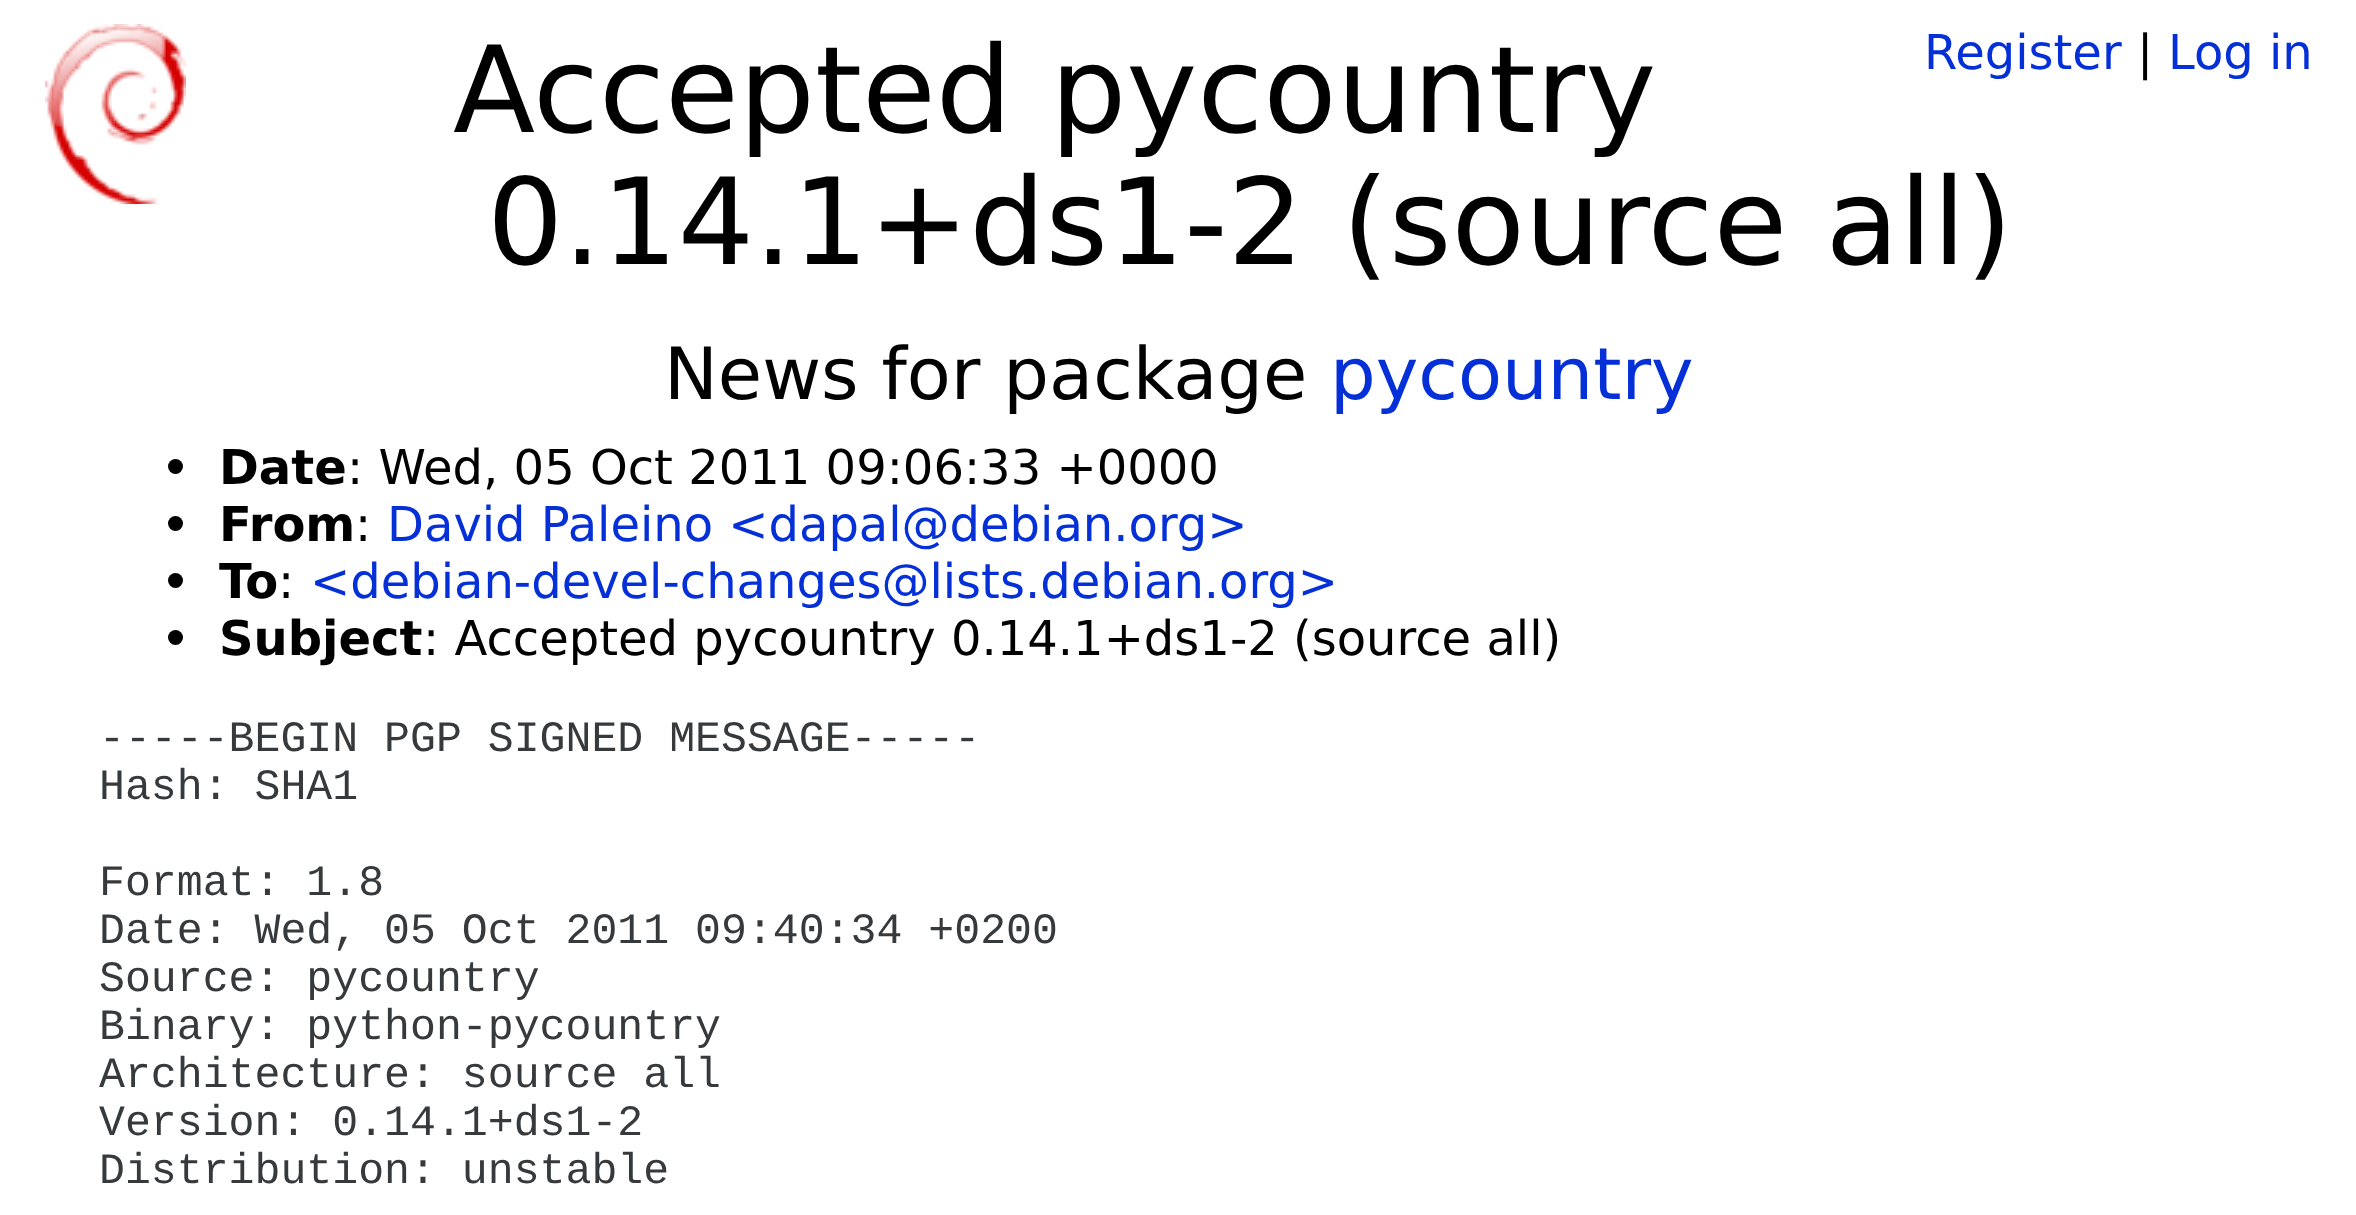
async function draw(canvas) {
  canvas.width = 2356
  canvas.height = 1215
  const ctx = canvas.getContext('2d')
  ctx.miterLimit = 4
  ctx.fontKerning = 'normal'
  async function loadImage(src) {
    const img = new Image()
    img.src = src
    await img.decode()
    return img
  }

  ctx.fillStyle = '#fff'
  ctx.fillRect(0, 0, 2356, 1215)
  ctx.drawImage(await loadImage('image0.png'), 45, 24, 141, 180)
  ctx.font = '120px DejaVu Sans'
  ctx.fillStyle = '#000'
  ctx.fillText('Accepted pycountry', 453, 132)
  ctx.fillText('0.14.1+ds1-2 (source all)', 487, 264)
  ctx.font = '48px DejaVu Sans'
  ctx.fillStyle = '#0530d7'
  ctx.fillText('Register', 1924, 69)
  ctx.fillStyle = '#000'
  ctx.fillText('|', 2137, 69)
  ctx.fillStyle = '#0530d7'
  ctx.fillText('Log in', 2168, 69)
  ctx.font = '72px DejaVu Sans'
  ctx.fillStyle = '#000'
  ctx.fillText('News for package', 664, 399)
  ctx.fillStyle = '#0530d7'
  ctx.fillText('pycountry', 1330, 399)
  ctx.fillStyle = '#000'
  ctx.beginPath()
  ctx.arc(175.5, 466.5, 7.5, 0, 2 * Math.PI)
  ctx.fill()
  ctx.font = 'bold 48px DejaVu Sans'
  ctx.fillText('Date', 219, 484)
  ctx.font = '48px DejaVu Sans'
  ctx.fillText(': Wed, 05 Oct 2011 09:06:33 +0000', 347, 484)
  ctx.beginPath()
  ctx.arc(175.5, 523.5, 7.5, 0, 2 * Math.PI)
  ctx.fill()
  ctx.font = 'bold 48px DejaVu Sans'
  ctx.fillText('From', 219, 541)
  ctx.font = '48px DejaVu Sans'
  ctx.fillText(':', 355, 541)
  ctx.fillStyle = '#0530d7'
  ctx.fillText('David Paleino <dapal@debian.org>', 387, 541)
  ctx.fillStyle = '#000'
  ctx.beginPath()
  ctx.arc(175.5, 580.5, 7.5, 0, 2 * Math.PI)
  ctx.fill()
  ctx.font = 'bold 48px DejaVu Sans'
  ctx.fillText('To', 219, 598)
  ctx.font = '48px DejaVu Sans'
  ctx.fillText(':', 278, 598)
  ctx.fillStyle = '#0530d7'
  ctx.fillText('<debian-devel-changes@lists.debian.org>', 310, 598)
  ctx.fillStyle = '#000'
  ctx.beginPath()
  ctx.arc(175.5, 637.5, 7.5, 0, 2 * Math.PI)
  ctx.fill()
  ctx.font = 'bold 48px DejaVu Sans'
  ctx.fillText('Subject', 219, 655)
  ctx.font = '48px DejaVu Sans'
  ctx.fillText(': Accepted pycountry 0.14.1+ds1-2 (source all)', 423, 655)
  ctx.font = '43.2px Liberation Mono'
  ctx.fillStyle = '#373a3c'
  ctx.fillText('-----BEGIN PGP SIGNED MESSAGE-----', 99, 751)
  ctx.fillText('Hash: SHA1', 99, 799)
  ctx.fillText('Format: 1.8', 99, 895)
  ctx.fillText('Date: Wed, 05 Oct 2011 09:40:34 +0200', 99, 943)
  ctx.fillText('Source: pycountry', 99, 991)
  ctx.fillText('Binary: python-pycountry', 99, 1039)
  ctx.fillText('Architecture: source all', 99, 1087)
  ctx.fillText('Version: 0.14.1+ds1-2', 99, 1135)
  ctx.fillText('Distribution: unstable', 99, 1183)
}

draw(document.querySelector('canvas'))
